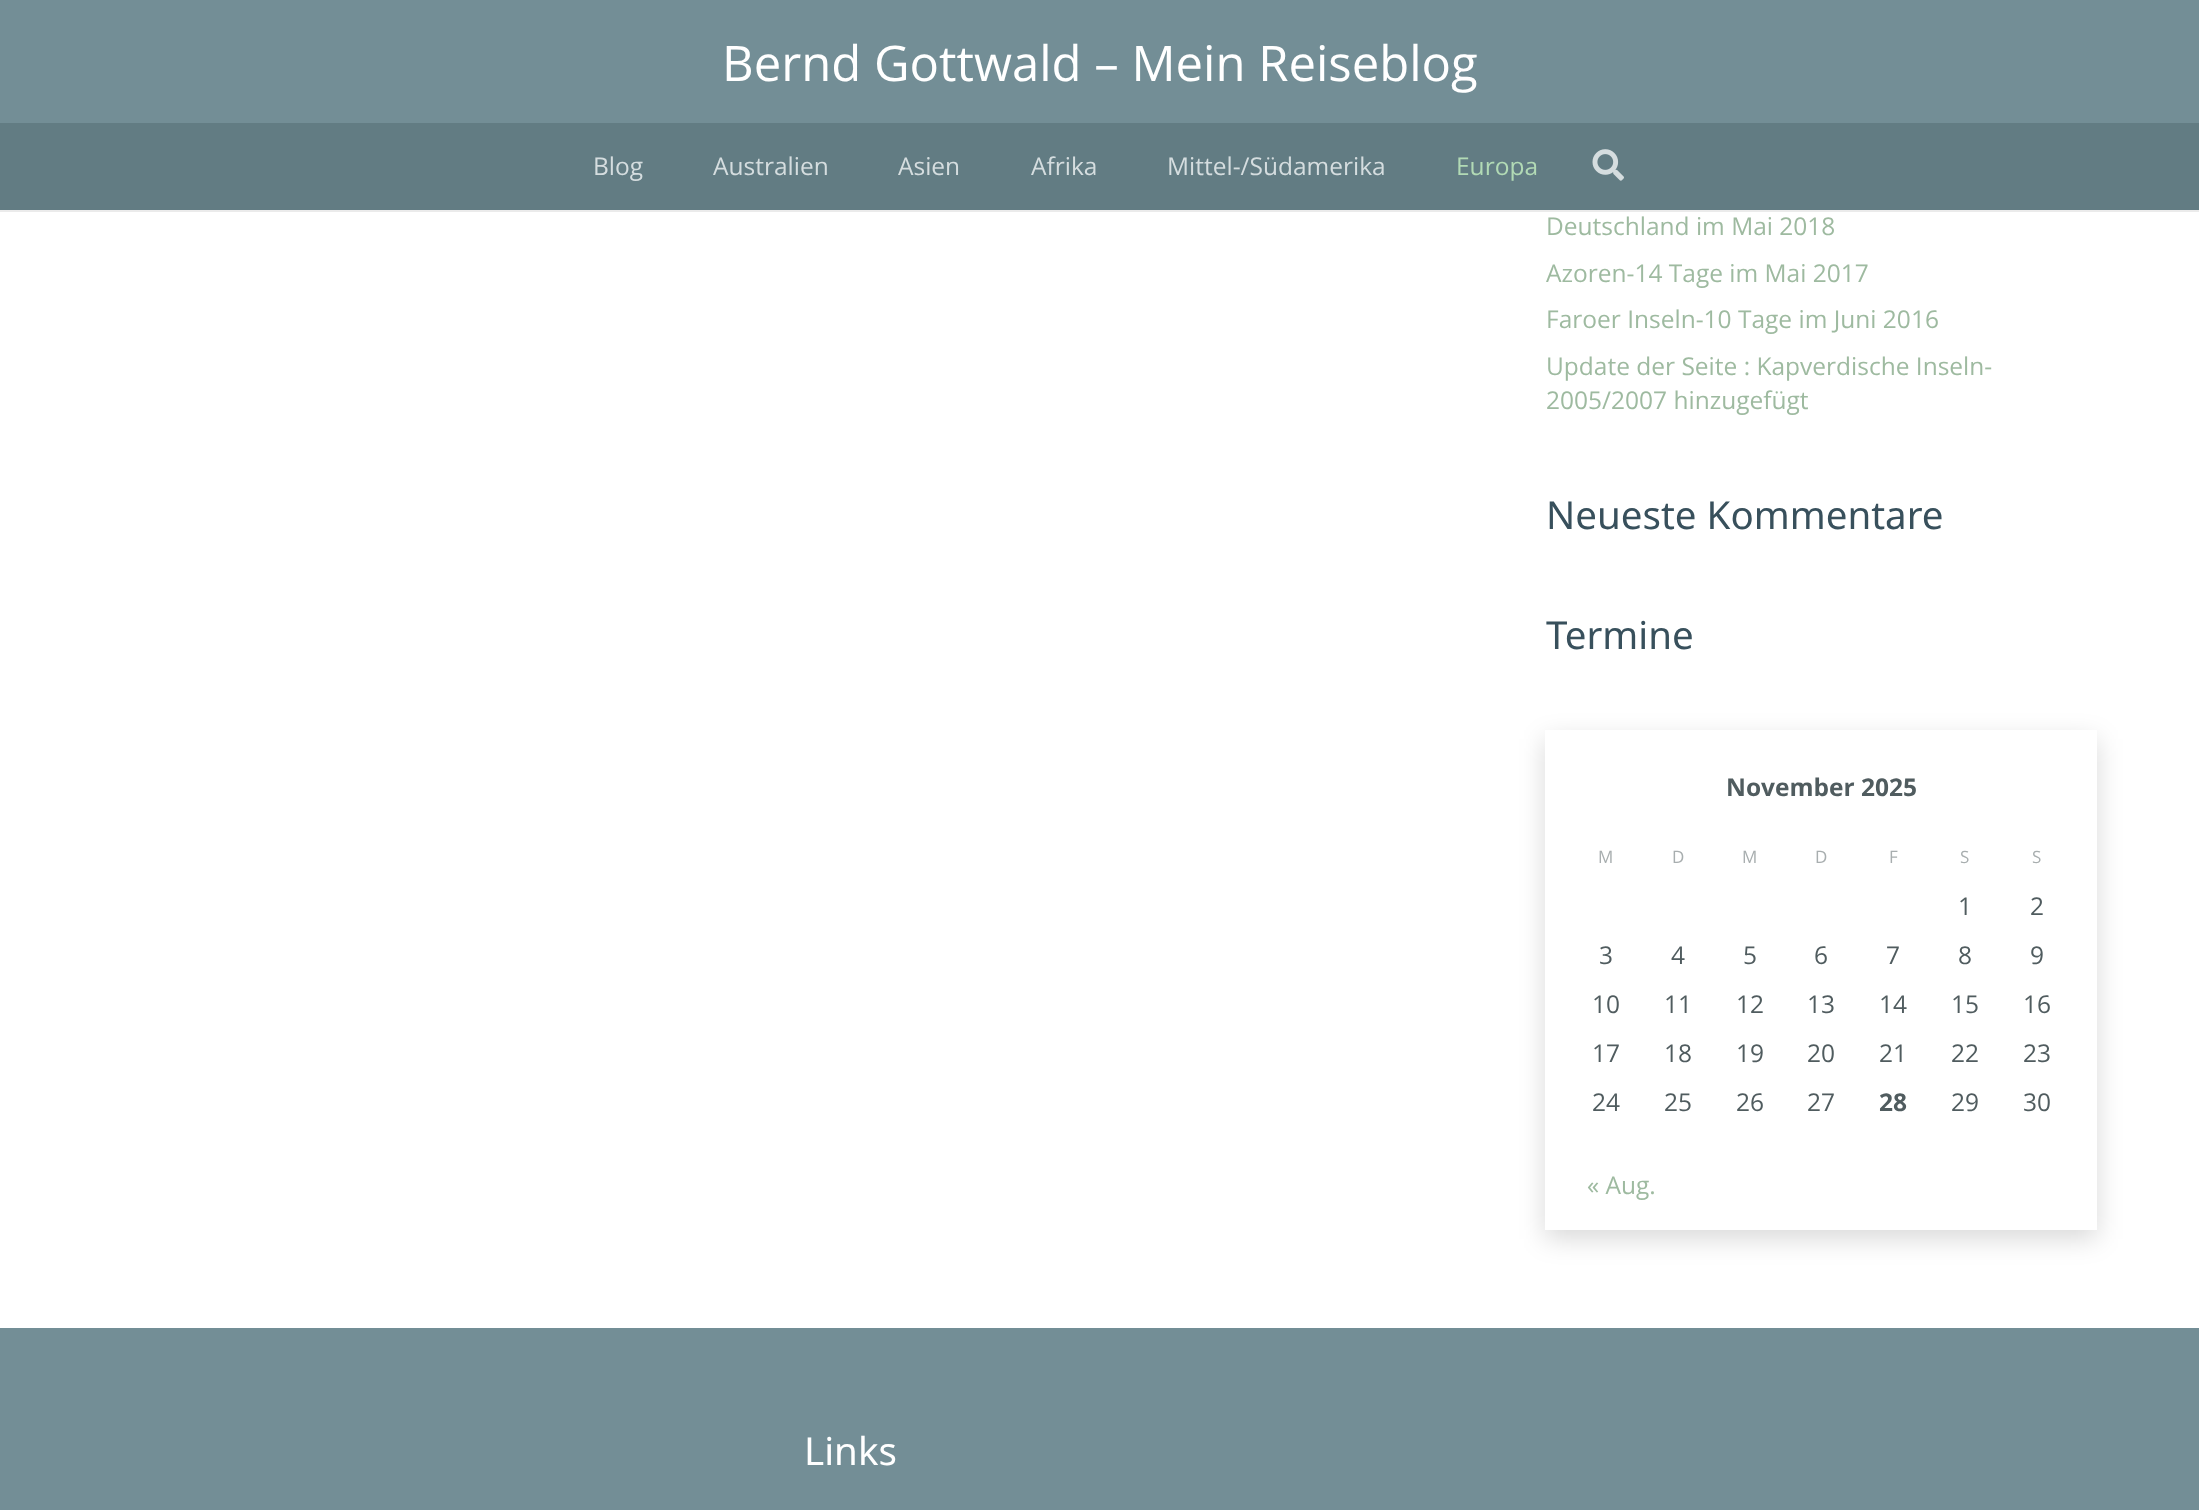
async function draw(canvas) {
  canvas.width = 2199
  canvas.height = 1510
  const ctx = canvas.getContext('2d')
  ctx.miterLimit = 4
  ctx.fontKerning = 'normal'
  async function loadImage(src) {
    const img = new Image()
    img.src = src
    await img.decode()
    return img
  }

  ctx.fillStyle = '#fff'
  ctx.fillRect(0, 0, 2199, 1510)
  ctx.fillStyle = '#738e96'
  ctx.fillRect(0, 0, 2199, 123)
  ctx.font = '49px Open Sans'
  ctx.fillStyle = '#fff'
  ctx.fillText('Bernd Gottwald – Mein Reiseblog', 722, 81)
  ctx.fillStyle = '#ebebeb'
  ctx.beginPath()
  ctx.moveTo(0, 210)
  ctx.lineTo(0, 212)
  ctx.lineTo(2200, 212)
  ctx.lineTo(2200, 124)
  ctx.lineTo(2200, 210)
  ctx.closePath()
  ctx.fill()
  ctx.fillStyle = '#627c83'
  ctx.fillRect(0, 123, 2199, 87)
  ctx.font = '24.5px Open Sans'
  ctx.fillStyle = '#d5dddf'
  ctx.fillText('Blog', 593, 175)
  ctx.fillText('Australien', 713, 175)
  ctx.fillText('Asien', 898, 175)
  ctx.fillText('Afrika', 1031, 175)
  ctx.fillText('Mittel-/Südamerika', 1167, 175)
  ctx.fillStyle = '#b2dab5'
  ctx.fillText('Europa', 1456, 175)
  ctx.drawImage(await loadImage('image0.png'), 1592, 149, 32, 32)
  ctx.fillStyle = '#9ebaa0'
  ctx.fillText('Deutschland im Mai 2018', 1546, 235)
  ctx.fillText('Azoren-14 Tage im Mai 2017', 1546, 282)
  ctx.fillText('Faroer Inseln-10 Tage im Juni 2016', 1546, 328)
  ctx.fillText('Update der Seite : Kapverdische Inseln-', 1546, 375)
  ctx.fillText('2005/2007 hinzugefügt', 1546, 409)
  ctx.font = '38.5px Noto Sans'
  ctx.fillStyle = '#38505c'
  ctx.fillText('Neueste Kommentare', 1546, 529)
  ctx.fillText('Termine', 1546, 649)
  ctx.save()
  ctx.beginPath()
  ctx.moveTo(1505, 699)
  ctx.lineTo(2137, 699)
  ctx.lineTo(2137, 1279)
  ctx.lineTo(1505, 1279)
  ctx.closePath()
  ctx.moveTo(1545, 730)
  ctx.lineTo(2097, 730)
  ctx.lineTo(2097, 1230)
  ctx.lineTo(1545, 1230)
  ctx.closePath()
  ctx.clip('evenodd')
  ctx.fillStyle = '#00000026'
  ctx.filter = 'blur(13px)'
  ctx.beginPath()
  ctx.rect(1545, 739, 552, 500)
  ctx.fill()
  ctx.filter = 'none'
  ctx.restore()
  ctx.font = 'bold 24.5px Open Sans'
  ctx.fillStyle = '#505c5f'
  ctx.fillText('November 2025', 1726, 796)
  ctx.font = '17px Open Sans'
  ctx.fillStyle = '#a8aeaf'
  ctx.fillText('M', 1598, 863)
  ctx.fillText('D', 1672, 863)
  ctx.fillText('M', 1742, 863)
  ctx.fillText('D', 1815, 863)
  ctx.fillText('F', 1889, 863)
  ctx.fillText('S', 1960, 863)
  ctx.fillText('S', 2032, 863)
  ctx.font = '24.5px Open Sans'
  ctx.fillStyle = '#505c5f'
  ctx.fillText('1', 1958, 915)
  ctx.fillText('2', 2030, 915)
  ctx.fillText('3', 1599, 964)
  ctx.fillText('4', 1671, 964)
  ctx.fillText('5', 1743, 964)
  ctx.fillText('6', 1814, 964)
  ctx.fillText('7', 1886, 964)
  ctx.fillText('8', 1958, 964)
  ctx.fillText('9', 2030, 964)
  ctx.fillText('10', 1592, 1013)
  ctx.fillText('11', 1664, 1013)
  ctx.fillText('12', 1736, 1013)
  ctx.fillText('13', 1807, 1013)
  ctx.fillText('14', 1879, 1013)
  ctx.fillText('15', 1951, 1013)
  ctx.fillText('16', 2023, 1013)
  ctx.fillText('17', 1592, 1062)
  ctx.fillText('18', 1664, 1062)
  ctx.fillText('19', 1736, 1062)
  ctx.fillText('20', 1807, 1062)
  ctx.fillText('21', 1879, 1062)
  ctx.fillText('22', 1951, 1062)
  ctx.fillText('23', 2023, 1062)
  ctx.fillText('24', 1592, 1111)
  ctx.fillText('25', 1664, 1111)
  ctx.fillText('26', 1736, 1111)
  ctx.fillText('27', 1807, 1111)
  ctx.font = 'bold 24.5px Open Sans'
  ctx.fillText('28', 1879, 1111)
  ctx.font = '24.5px Open Sans'
  ctx.fillText('29', 1951, 1111)
  ctx.fillText('30', 2023, 1111)
  ctx.fillStyle = '#9ebaa0'
  ctx.fillText('« Aug.', 1587, 1194)
  ctx.fillStyle = '#738e96'
  ctx.fillRect(0, 1328, 2199, 182)
  ctx.font = '38.5px Noto Sans'
  ctx.fillStyle = '#fff'
  ctx.fillText('Links', 804, 1465)
}

draw(document.querySelector('canvas'))
